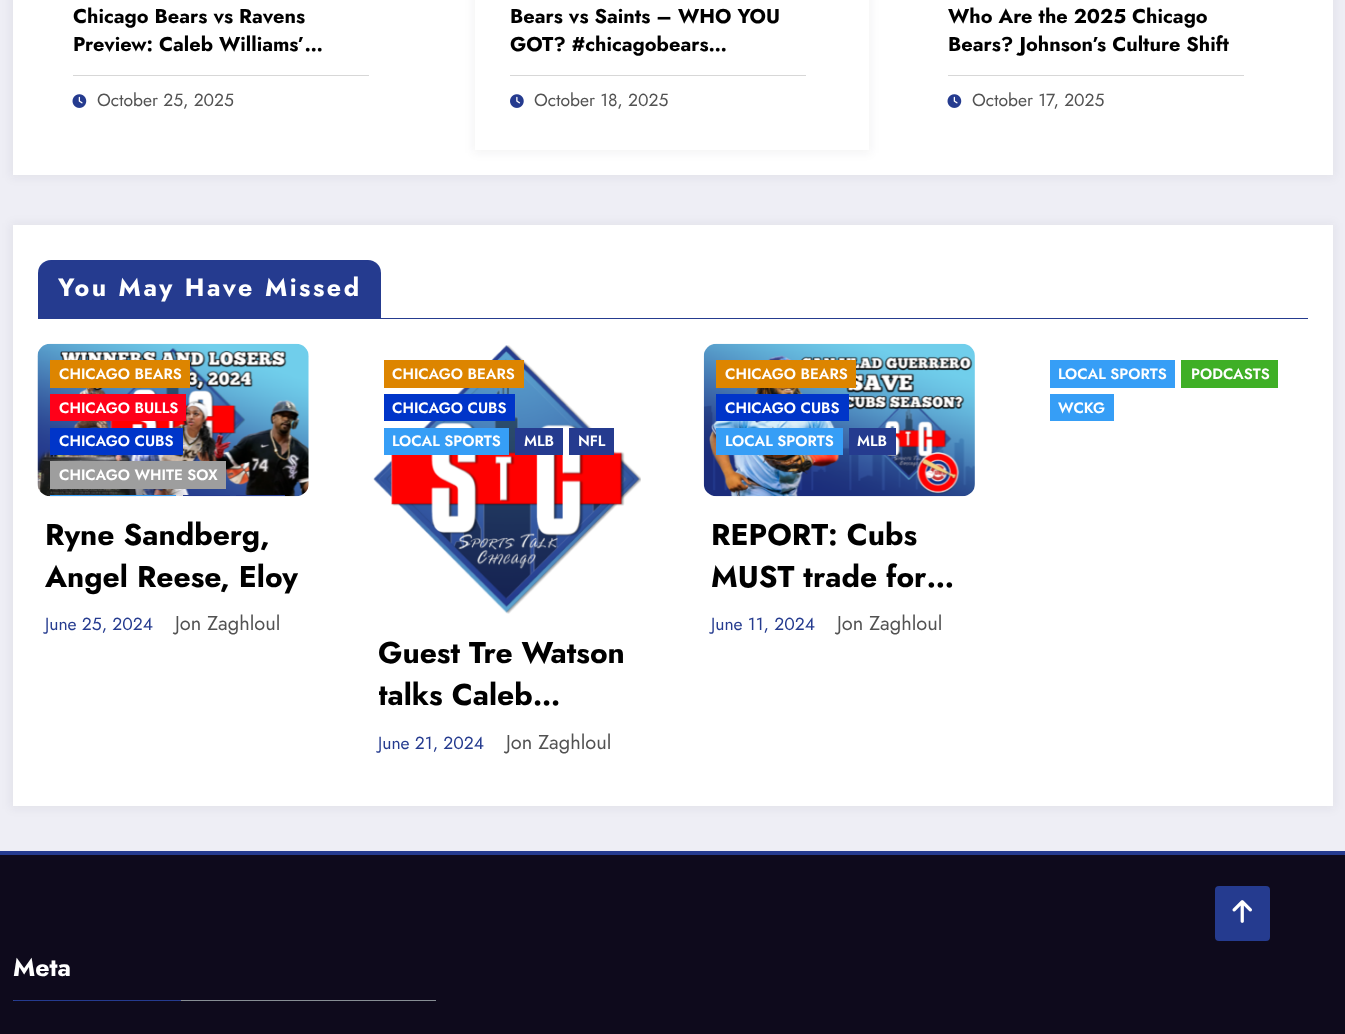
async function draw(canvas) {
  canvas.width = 1345
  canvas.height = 1034
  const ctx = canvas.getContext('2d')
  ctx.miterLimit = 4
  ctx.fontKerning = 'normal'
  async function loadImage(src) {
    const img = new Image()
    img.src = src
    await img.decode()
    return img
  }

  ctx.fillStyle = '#eeeef5'
  ctx.fillRect(0, 0, 1345, 1034)
  ctx.fillStyle = '#1717230d'
  ctx.filter = 'blur(5px)'
  ctx.beginPath()
  ctx.rect(10, -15, 1325, 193)
  ctx.fill()
  ctx.filter = 'none'
  ctx.fillStyle = '#fff'
  ctx.fillRect(13, 0, 1320, 175)
  ctx.fillStyle = '#d7d7d7'
  ctx.fillRect(73, 75, 296, 1)
  ctx.font = 'bold 20px Jost'
  ctx.fillStyle = '#000'
  ctx.fillText('Chicago Bears vs Ravens', 73, 23)
  ctx.fillText('Preview: Caleb Williams’…', 73, 51)
  ctx.drawImage(await loadImage('image0.png'), 72, 94, 15, 14)
  ctx.font = '17.5px Jost'
  ctx.fillStyle = '#525252'
  ctx.fillText('October 25, 2025', 97, 106)
  ctx.fillStyle = '#1717230d'
  ctx.filter = 'blur(5px)'
  ctx.beginPath()
  ctx.rect(473, -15, 398, 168)
  ctx.fill()
  ctx.filter = 'none'
  ctx.fillStyle = '#fff'
  ctx.fillRect(475, 0, 394, 150)
  ctx.fillStyle = '#d7d7d7'
  ctx.fillRect(510, 75, 296, 1)
  ctx.font = 'bold 20px Jost'
  ctx.fillStyle = '#000'
  ctx.fillText('Bears vs Saints – WHO YOU', 510, 23)
  ctx.fillText('GOT? #chicagobears…', 510, 51)
  ctx.drawImage(await loadImage('image1.png'), 510, 94, 14, 14)
  ctx.font = '17.5px Jost'
  ctx.fillStyle = '#525252'
  ctx.fillText('October 18, 2025', 534, 106)
  ctx.fillStyle = '#d7d7d7'
  ctx.fillRect(948, 75, 296, 1)
  ctx.font = 'bold 20px Jost'
  ctx.fillStyle = '#000'
  ctx.fillText('Who Are the 2025 Chicago', 948, 23)
  ctx.fillText('Bears? Johnson’s Culture Shift', 948, 51)
  ctx.drawImage(await loadImage('image0.png'), 947, 94, 15, 14)
  ctx.font = '17.5px Jost'
  ctx.fillStyle = '#525252'
  ctx.fillText('October 17, 2025', 972, 106)
  ctx.fillStyle = '#1717230d'
  ctx.filter = 'blur(5px)'
  ctx.beginPath()
  ctx.rect(10, 223, 1325, 586)
  ctx.fill()
  ctx.filter = 'none'
  ctx.fillStyle = '#fff'
  ctx.fillRect(13, 225, 1320, 581)
  ctx.fillStyle = '#253b8f'
  ctx.fillRect(38, 318, 1270, 1)
  ctx.beginPath()
  ctx.roundRect(38, 260, 343, 58, [13, 13, 0, 0])
  ctx.fill()
  ctx.letterSpacing = '2.5px'
  ctx.font = 'bold 25px Jost'
  ctx.fillStyle = '#fff'
  ctx.fillText('You May Have Missed', 58, 296)
  ctx.drawImage(await loadImage('image2.png'), 37, 343, 272, 154)
  ctx.fillStyle = '#dd8500'
  ctx.fillRect(50, 360, 140, 28)
  ctx.letterSpacing = '0px'
  ctx.font = '600 15px Jost'
  ctx.fillStyle = '#fff'
  ctx.fillText('CHICAGO BEARS', 59, 379)
  ctx.fillStyle = '#ff0019'
  ctx.fillRect(50, 394, 136, 27)
  ctx.fillStyle = '#fff'
  ctx.fillText('CHICAGO BULLS', 59, 413)
  ctx.fillStyle = '#0035c9'
  ctx.fillRect(50, 428, 133, 27)
  ctx.fillStyle = '#fff'
  ctx.fillText('CHICAGO CUBS', 59, 446)
  ctx.fillStyle = '#9e9e9e'
  ctx.fillRect(50, 461, 176, 28)
  ctx.fillStyle = '#fff'
  ctx.fillText('CHICAGO WHITE SOX', 59, 480)
  ctx.fillStyle = '#369ef6'
  ctx.fillRect(50, 495, 126, 1)
  ctx.fillStyle = '#253b8f'
  ctx.fillRect(183, 495, 47, 1)
  ctx.fillRect(236, 495, 49, 1)
  ctx.font = 'bold 30px Jost'
  ctx.fillStyle = '#000'
  ctx.fillText('Ryne Sandberg,', 45, 545)
  ctx.fillText('Angel Reese, Eloy', 45, 587)
  ctx.font = '17.5px Jost'
  ctx.fillStyle = '#253b8f'
  ctx.fillText('June 25, 2024', 45, 630)
  ctx.font = '20px Jost'
  ctx.fillStyle = '#525252'
  ctx.fillText('Jon Zaghloul', 175, 630)
  ctx.drawImage(await loadImage('image3.png'), 373, 345, 268, 269)
  ctx.fillStyle = '#dd8500'
  ctx.fillRect(384, 360, 140, 28)
  ctx.font = '600 15px Jost'
  ctx.fillStyle = '#fff'
  ctx.fillText('CHICAGO BEARS', 392, 379)
  ctx.fillStyle = '#0035c9'
  ctx.fillRect(384, 394, 131, 27)
  ctx.fillStyle = '#fff'
  ctx.fillText('CHICAGO CUBS', 392, 413)
  ctx.fillStyle = '#369ef6'
  ctx.fillRect(384, 428, 125, 27)
  ctx.fillStyle = '#fff'
  ctx.fillText('LOCAL SPORTS', 392, 446)
  ctx.fillStyle = '#253b8f'
  ctx.fillRect(515, 428, 48, 27)
  ctx.fillStyle = '#fff'
  ctx.fillText('MLB', 524, 446)
  ctx.fillStyle = '#253b8f'
  ctx.fillRect(569, 428, 45, 27)
  ctx.fillStyle = '#fff'
  ctx.fillText('NFL', 578, 446)
  ctx.font = 'bold 30px Jost'
  ctx.fillStyle = '#000'
  ctx.fillText('Guest Tre Watson', 378, 663)
  ctx.save()
  ctx.beginPath()
  ctx.rect(379, 633, 255, 83)
  ctx.clip()
  ctx.fillText('talks Caleb…', 378, 705)
  ctx.restore()
  ctx.font = '17.5px Jost'
  ctx.fillStyle = '#253b8f'
  ctx.fillText('June 21, 2024', 378, 749)
  ctx.font = '20px Jost'
  ctx.fillStyle = '#525252'
  ctx.fillText('Jon Zaghloul', 506, 749)
  ctx.drawImage(await loadImage('image4.png'), 703, 343, 272, 154)
  ctx.fillStyle = '#dd8500'
  ctx.fillRect(716, 360, 140, 28)
  ctx.font = '600 15px Jost'
  ctx.fillStyle = '#fff'
  ctx.fillText('CHICAGO BEARS', 725, 379)
  ctx.fillStyle = '#0035c9'
  ctx.fillRect(716, 394, 133, 27)
  ctx.fillStyle = '#fff'
  ctx.fillText('CHICAGO CUBS', 725, 413)
  ctx.fillStyle = '#369ef6'
  ctx.fillRect(716, 428, 127, 27)
  ctx.fillStyle = '#fff'
  ctx.fillText('LOCAL SPORTS', 725, 446)
  ctx.fillStyle = '#253b8f'
  ctx.fillRect(849, 428, 47, 27)
  ctx.fillStyle = '#fff'
  ctx.fillText('MLB', 857, 446)
  ctx.font = 'bold 30px Jost'
  ctx.fillStyle = '#000'
  ctx.fillText('REPORT: Cubs', 711, 545)
  ctx.fillText('MUST trade for…', 711, 587)
  ctx.font = '17.5px Jost'
  ctx.fillStyle = '#253b8f'
  ctx.fillText('June 11, 2024', 711, 630)
  ctx.font = '20px Jost'
  ctx.fillStyle = '#525252'
  ctx.fillText('Jon Zaghloul', 837, 630)
  ctx.fillStyle = '#369ef6'
  ctx.fillRect(1050, 360, 125, 28)
  ctx.font = '600 15px Jost'
  ctx.fillStyle = '#fff'
  ctx.fillText('LOCAL SPORTS', 1058, 379)
  ctx.fillStyle = '#3faf26'
  ctx.fillRect(1181, 360, 97, 28)
  ctx.fillStyle = '#fff'
  ctx.fillText('PODCASTS', 1191, 379)
  ctx.fillStyle = '#369ef6'
  ctx.fillRect(1050, 394, 64, 27)
  ctx.fillStyle = '#fff'
  ctx.fillText('WCKG', 1058, 413)
  ctx.fillStyle = '#0e0a1c'
  ctx.fillRect(0, 855, 1345, 179)
  ctx.fillStyle = '#253b8f'
  ctx.beginPath()
  ctx.roundRect(1215, 886, 55, 55, 4)
  ctx.fill()
  ctx.drawImage(await loadImage('image5.png'), 1232, 900, 20, 23)
  ctx.fillRect(0, 851, 1345, 4)
  ctx.fillStyle = '#878e94'
  ctx.fillRect(13, 1000, 423, 1)
  ctx.font = 'bold 25px Jost'
  ctx.fillStyle = '#fff'
  ctx.fillText('Meta', 13, 976)
  ctx.fillStyle = '#253b8f'
  ctx.beginPath()
  ctx.roundRect(13, 1000, 168, 1, 0.5)
  ctx.fill()
}

draw(document.querySelector('canvas'))
